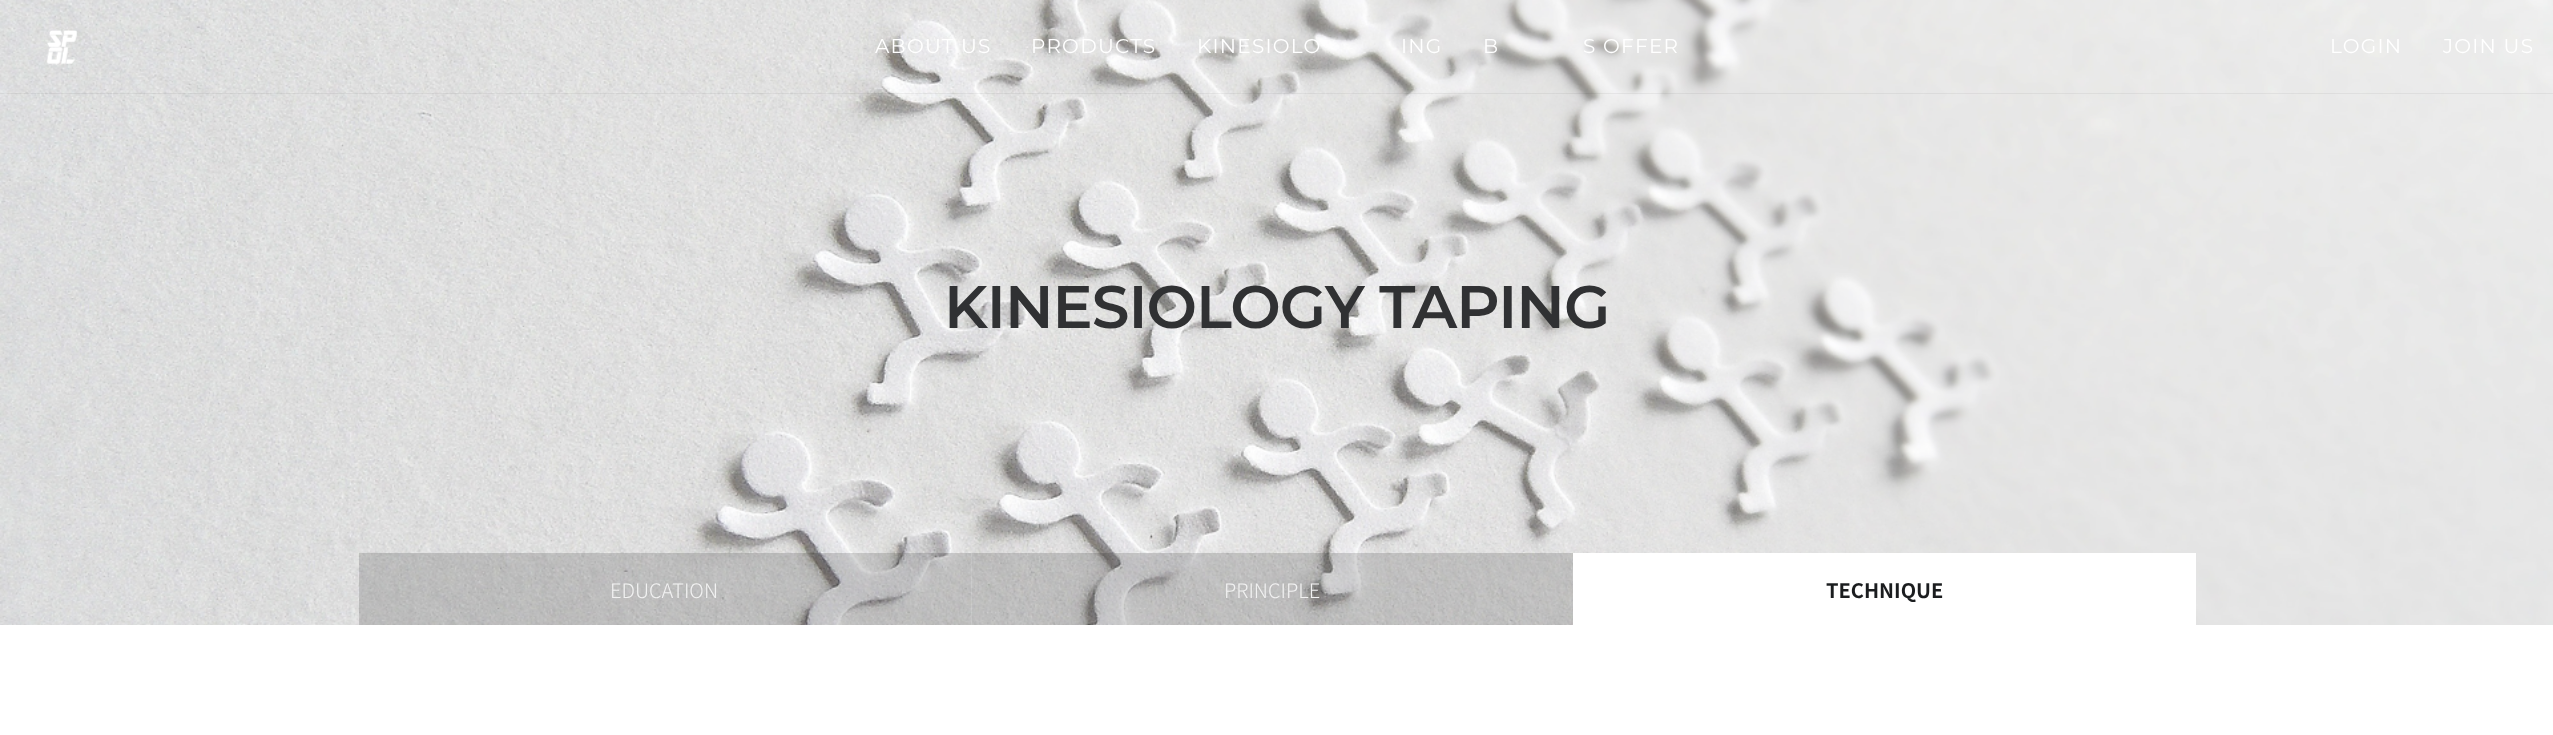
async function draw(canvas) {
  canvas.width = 2553
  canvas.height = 735
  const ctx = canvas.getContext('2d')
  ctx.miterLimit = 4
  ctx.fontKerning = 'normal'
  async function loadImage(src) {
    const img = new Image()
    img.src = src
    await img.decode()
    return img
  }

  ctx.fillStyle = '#fff'
  ctx.fillRect(0, 0, 2553, 735)
  ctx.drawImage(await loadImage('image1.png'), 0, 0, 2553, 625)
  ctx.drawImage(await loadImage('image0.png'), 46, 30, 31, 34)
  ctx.letterSpacing = '1.25px'
  ctx.font = '20px Montserrat'
  ctx.fillText('ABOUT US', 875, 53)
  ctx.fillText('PRODUCTS', 1031, 53)
  ctx.fillText('KINESIOLO', 1197, 53)
  ctx.fillText('ING', 1401, 53)
  ctx.fillText('B', 1483, 53)
  ctx.fillText('S OFFER', 1583, 53)
  ctx.fillText('LOGIN', 2330, 53)
  ctx.fillText('JOIN US', 2443, 53)
  ctx.fillStyle = '#0000000d'
  ctx.fillRect(0, 93, 2553, 1)
  ctx.letterSpacing = '-1px'
  ctx.font = '600 60px Montserrat'
  ctx.fillStyle = '#303133'
  ctx.fillText('KINESIOLOGY TAPING', 944, 328)
  ctx.fillStyle = '#00000026'
  ctx.fillRect(359, 553, 612, 72)
  ctx.letterSpacing = '0px'
  ctx.font = '300 20px Noto Sans KR'
  ctx.fillStyle = '#f2f2f2'
  ctx.fillText('EDUCATION', 610, 598)
  ctx.fillStyle = '#00000026'
  ctx.fillRect(971, 553, 602, 72)
  ctx.fillStyle = '#ffffff26'
  ctx.fillRect(971, 553, 1, 72)
  ctx.fillStyle = '#f2f2f2'
  ctx.fillText('PRINCIPLE', 1224, 598)
  ctx.fillStyle = '#fff'
  ctx.fillRect(1573, 553, 623, 72)
  ctx.font = 'bold 20px Noto Sans KR'
  ctx.fillStyle = '#1b1d1f'
  ctx.fillText('TECHNIQUE', 1826, 598)
}

draw(document.querySelector('canvas'))
